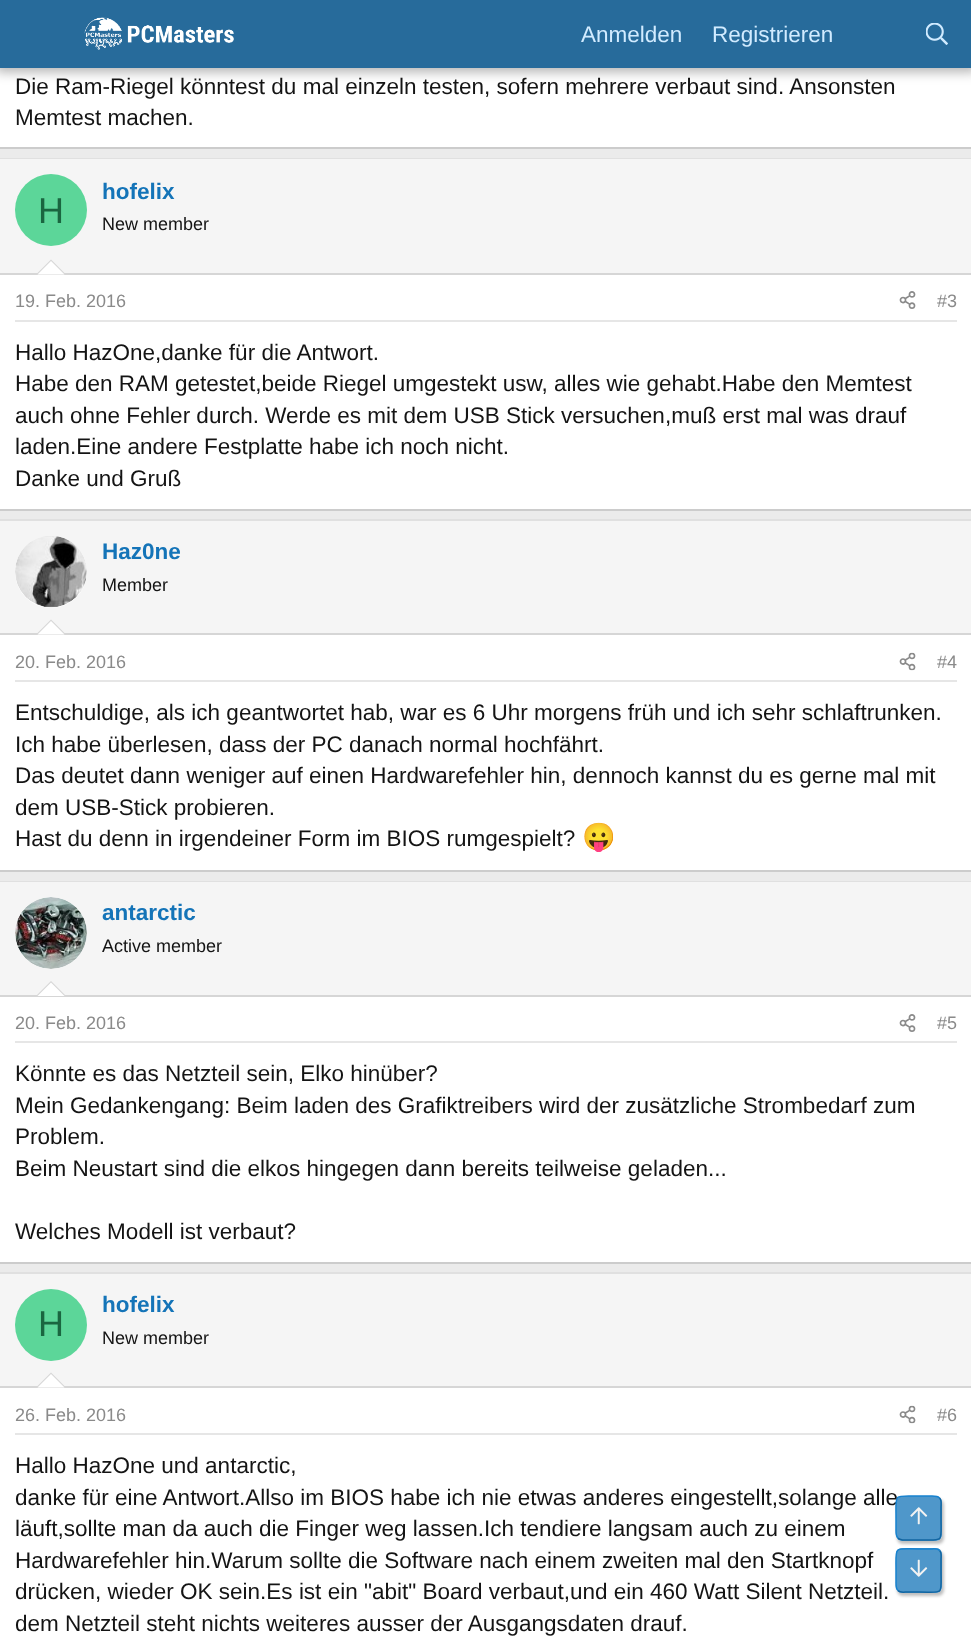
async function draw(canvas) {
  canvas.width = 971
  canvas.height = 1638
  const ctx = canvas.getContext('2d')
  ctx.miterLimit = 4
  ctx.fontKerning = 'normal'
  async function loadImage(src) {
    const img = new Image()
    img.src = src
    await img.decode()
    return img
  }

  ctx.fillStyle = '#ebebeb'
  ctx.fillRect(0, 0, 971, 1638)
  ctx.fillStyle = '#fff'
  ctx.fillRect(0, 68, 971, 79)
  ctx.fillStyle = '#0000004d'
  ctx.filter = 'blur(6px)'
  ctx.beginPath()
  ctx.rect(-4, -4, 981, 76)
  ctx.fill()
  ctx.filter = 'none'
  ctx.fillStyle = '#276b9b'
  ctx.fillRect(0, 0, 971, 68)
  ctx.drawImage(await loadImage('image0.png'), 84, 17, 150, 33)
  ctx.font = '22.5px Liberation Sans'
  ctx.fillStyle = '#d1ebff'
  ctx.fillText('Anmelden', 581, 42)
  ctx.fillText('Registrieren', 712, 42)
  ctx.drawImage(await loadImage('image1.png'), 926, 23, 22, 22)
  ctx.fillStyle = '#ccc'
  ctx.fillRect(0, 147, 971, 2)
  ctx.fillStyle = '#141414'
  ctx.fillText('Die Ram-Riegel könntest du mal einzeln testen, sofern mehrere verbaut sind. Ansonsten', 15, 94)
  ctx.fillText('Memtest machen.', 15, 125)
  ctx.fillStyle = '#fff'
  ctx.fillRect(0, 275, 971, 234)
  ctx.fillStyle = '#e0e0e0'
  ctx.fillRect(0, 158, 971, 1)
  ctx.fillStyle = '#ccc'
  ctx.fillRect(0, 509, 971, 2)
  ctx.fillStyle = '#f5f5f5'
  ctx.fillRect(0, 159, 971, 114)
  ctx.fillStyle = '#d6d6d6'
  ctx.fillRect(0, 273, 971, 2)
  ctx.fillStyle = '#5cd699'
  ctx.beginPath()
  ctx.arc(51, 210, 36, 0, 2 * Math.PI)
  ctx.fill()
  ctx.font = '36px Liberation Sans'
  ctx.fillStyle = '#1a6640'
  ctx.fillText('H', 38, 223)
  ctx.font = 'bold 22.5px Liberation Sans'
  ctx.fillStyle = '#1474b8'
  ctx.fillText('hofelix', 102, 199)
  ctx.font = '18px Liberation Sans'
  ctx.fillStyle = '#141414'
  ctx.fillText('New member', 102, 230)
  ctx.fillStyle = '#d6d6d6'
  ctx.beginPath()
  ctx.moveTo(66, 274.5)
  ctx.lineTo(36, 274.5)
  ctx.lineTo(51, 259.5)
  ctx.closePath()
  ctx.fill()
  ctx.fillStyle = '#fff'
  ctx.beginPath()
  ctx.moveTo(64.5, 274.5)
  ctx.lineTo(37.5, 274.5)
  ctx.lineTo(51, 261)
  ctx.closePath()
  ctx.fill()
  ctx.fillStyle = '#e6e6e6'
  ctx.fillRect(15, 320, 942, 2)
  ctx.fillStyle = '#8a8a8a'
  ctx.fillText('19. Feb. 2016', 15, 307)
  ctx.drawImage(await loadImage('image2.png'), 899, 291, 17, 18)
  ctx.fillText('#3', 937, 307)
  ctx.font = '22.5px Liberation Sans'
  ctx.fillStyle = '#141414'
  ctx.fillText('Hallo HazOne,danke für die Antwort.', 15, 360)
  ctx.fillText('Habe den RAM getestet,beide Riegel umgestekt usw, alles wie gehabt.Habe den Memtest', 15, 391)
  ctx.fillText('auch ohne Fehler durch. Werde es mit dem USB Stick versuchen,muß erst mal was drauf', 15, 423)
  ctx.fillText('laden.Eine andere Festplatte habe ich noch nicht.', 15, 454)
  ctx.fillText('Danke und Gruß', 15, 486)
  ctx.fillStyle = '#fff'
  ctx.fillRect(0, 635, 971, 235)
  ctx.fillStyle = '#e0e0e0'
  ctx.fillRect(0, 519, 971, 2)
  ctx.fillStyle = '#ccc'
  ctx.fillRect(0, 870, 971, 2)
  ctx.fillStyle = '#f5f5f5'
  ctx.fillRect(0, 521, 971, 112)
  ctx.fillStyle = '#d6d6d6'
  ctx.fillRect(0, 633, 971, 2)
  ctx.fillStyle = '#fff'
  ctx.beginPath()
  ctx.arc(51, 572, 36, 0, 2 * Math.PI)
  ctx.fill()
  ctx.drawImage(await loadImage('image3.png'), 15, 536, 72, 72)
  ctx.font = 'bold 22.5px Liberation Sans'
  ctx.fillStyle = '#1474b8'
  ctx.fillText('Haz0ne', 102, 559)
  ctx.font = '18px Liberation Sans'
  ctx.fillStyle = '#141414'
  ctx.fillText('Member', 102, 591)
  ctx.fillStyle = '#d6d6d6'
  ctx.beginPath()
  ctx.moveTo(66, 634.5)
  ctx.lineTo(36, 634.5)
  ctx.lineTo(51, 619.5)
  ctx.closePath()
  ctx.fill()
  ctx.fillStyle = '#fff'
  ctx.beginPath()
  ctx.moveTo(64.5, 634.5)
  ctx.lineTo(37.5, 634.5)
  ctx.lineTo(51, 621)
  ctx.closePath()
  ctx.fill()
  ctx.fillStyle = '#e6e6e6'
  ctx.fillRect(15, 680, 942, 2)
  ctx.fillStyle = '#8a8a8a'
  ctx.fillText('20. Feb. 2016', 15, 668)
  ctx.drawImage(await loadImage('image4.png'), 899, 652, 17, 19)
  ctx.fillText('#4', 937, 668)
  ctx.font = '22.5px Liberation Sans'
  ctx.fillStyle = '#141414'
  ctx.fillText('Entschuldige, als ich geantwortet hab, war es 6 Uhr morgens früh und ich sehr schlaftrunken.', 15, 720)
  ctx.fillText('Ich habe überlesen, dass der PC danach normal hochfährt.', 15, 752)
  ctx.fillText('Das deutet dann weniger auf einen Hardwarefehler hin, dennoch kannst du es gerne mal mit', 15, 783)
  ctx.fillText('dem USB-Stick probieren.', 15, 815)
  ctx.fillText('Hast du denn in irgendeiner Form im BIOS rumgespielt?', 15, 846)
  ctx.font = '27px Noto Color Emoji'
  ctx.fillText('😛', 582, 846)
  ctx.fillStyle = '#fff'
  ctx.fillRect(0, 997, 971, 265)
  ctx.fillStyle = '#e0e0e0'
  ctx.fillRect(0, 881, 971, 1)
  ctx.fillStyle = '#ccc'
  ctx.fillRect(0, 1262, 971, 2)
  ctx.fillStyle = '#f5f5f5'
  ctx.fillRect(0, 882, 971, 113)
  ctx.fillStyle = '#d6d6d6'
  ctx.fillRect(0, 995, 971, 2)
  ctx.fillStyle = '#fff'
  ctx.beginPath()
  ctx.arc(51, 933, 36, 0, 2 * Math.PI)
  ctx.fill()
  ctx.drawImage(await loadImage('image5.png'), 15, 897, 72, 72)
  ctx.font = 'bold 22.5px Liberation Sans'
  ctx.fillStyle = '#1474b8'
  ctx.fillText('antarctic', 102, 920)
  ctx.font = '18px Liberation Sans'
  ctx.fillStyle = '#141414'
  ctx.fillText('Active member', 102, 952)
  ctx.fillStyle = '#d6d6d6'
  ctx.beginPath()
  ctx.moveTo(66, 996)
  ctx.lineTo(36, 996)
  ctx.lineTo(51, 981)
  ctx.closePath()
  ctx.fill()
  ctx.fillStyle = '#fff'
  ctx.beginPath()
  ctx.moveTo(64.5, 996)
  ctx.lineTo(37.5, 996)
  ctx.lineTo(51, 982.5)
  ctx.closePath()
  ctx.fill()
  ctx.fillStyle = '#e6e6e6'
  ctx.fillRect(15, 1041, 942, 2)
  ctx.fillStyle = '#8a8a8a'
  ctx.fillText('20. Feb. 2016', 15, 1029)
  ctx.drawImage(await loadImage('image2.png'), 899, 1014, 17, 18)
  ctx.fillText('#5', 937, 1029)
  ctx.font = '22.5px Liberation Sans'
  ctx.fillStyle = '#141414'
  ctx.fillText('Könnte es das Netzteil sein, Elko hinüber?', 15, 1081)
  ctx.fillText('Mein Gedankengang: Beim laden des Grafiktreibers wird der zusätzliche Strombedarf zum', 15, 1113)
  ctx.fillText('Problem.', 15, 1144)
  ctx.fillText('Beim Neustart sind die elkos hingegen dann bereits teilweise geladen...', 15, 1176)
  ctx.fillText('Welches Modell ist verbaut?', 15, 1239)
  ctx.fillStyle = '#fff'
  ctx.fillRect(0, 1388, 971, 250)
  ctx.fillStyle = '#e0e0e0'
  ctx.fillRect(0, 1272, 971, 2)
  ctx.fillStyle = '#f5f5f5'
  ctx.fillRect(0, 1274, 971, 112)
  ctx.fillStyle = '#d6d6d6'
  ctx.fillRect(0, 1386, 971, 2)
  ctx.fillStyle = '#5cd699'
  ctx.beginPath()
  ctx.arc(51, 1325, 36, 0, 2 * Math.PI)
  ctx.fill()
  ctx.font = '36px Liberation Sans'
  ctx.fillStyle = '#1a6640'
  ctx.fillText('H', 38, 1336)
  ctx.font = 'bold 22.5px Liberation Sans'
  ctx.fillStyle = '#1474b8'
  ctx.fillText('hofelix', 102, 1312)
  ctx.font = '18px Liberation Sans'
  ctx.fillStyle = '#141414'
  ctx.fillText('New member', 102, 1344)
  ctx.fillStyle = '#d6d6d6'
  ctx.beginPath()
  ctx.moveTo(66, 1387.5)
  ctx.lineTo(36, 1387.5)
  ctx.lineTo(51, 1372.5)
  ctx.closePath()
  ctx.fill()
  ctx.fillStyle = '#fff'
  ctx.beginPath()
  ctx.moveTo(64.5, 1387.5)
  ctx.lineTo(37.5, 1387.5)
  ctx.lineTo(51, 1374)
  ctx.closePath()
  ctx.fill()
  ctx.fillStyle = '#e6e6e6'
  ctx.fillRect(15, 1433, 942, 2)
  ctx.fillStyle = '#8a8a8a'
  ctx.fillText('26. Feb. 2016', 15, 1421)
  ctx.drawImage(await loadImage('image4.png'), 899, 1405, 17, 19)
  ctx.fillText('#6', 937, 1421)
  ctx.font = '22.5px Liberation Sans'
  ctx.fillStyle = '#141414'
  ctx.fillText('Hallo HazOne und antarctic,', 15, 1473)
  ctx.fillText('danke für eine Antwort.Allso im BIOS habe ich nie etwas anderes eingestellt,solange alle', 15, 1505)
  ctx.fillText('läuft,sollte man da auch die Finger weg lassen.Ich tendiere langsam auch zu einem', 15, 1536)
  ctx.fillText('Hardwarefehler hin.Warum sollte die Software nach einem zweiten mal den Startknopf', 15, 1568)
  ctx.fillText('drücken, wieder OK sein.Es ist ein "abit" Board verbaut,und ein 460 Watt Silent Netzteil.', 15, 1599)
  ctx.fillText('dem Netzteil steht nichts weiteres ausser der Ausgangsdaten drauf.', 15, 1631)
  ctx.save()
  ctx.beginPath()
  ctx.moveTo(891, 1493)
  ctx.lineTo(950, 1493)
  ctx.lineTo(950, 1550)
  ctx.lineTo(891, 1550)
  ctx.closePath()
  ctx.moveTo(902, 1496)
  ctx.lineTo(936, 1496)
  ctx.bezierCurveTo(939.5, 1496, 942, 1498.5, 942, 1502)
  ctx.lineTo(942, 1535)
  ctx.bezierCurveTo(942, 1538.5, 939.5, 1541, 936, 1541)
  ctx.lineTo(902, 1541)
  ctx.bezierCurveTo(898.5, 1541, 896, 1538.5, 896, 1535)
  ctx.lineTo(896, 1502)
  ctx.bezierCurveTo(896, 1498.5, 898.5, 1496, 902, 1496)
  ctx.closePath()
  ctx.clip('evenodd')
  ctx.fillStyle = '#00000040'
  ctx.filter = 'blur(1.5px)'
  ctx.beginPath()
  ctx.roundRect(897, 1499, 47, 45, 6)
  ctx.fill()
  ctx.filter = 'none'
  ctx.restore()
  ctx.fillStyle = '#1474b8bf'
  ctx.beginPath()
  ctx.roundRect(896, 1496, 46, 45, 6)
  ctx.fill()
  ctx.beginPath()
  ctx.moveTo(939.5, 1498)
  ctx.bezierCurveTo(942, 1500, 941, 1504, 941, 1507)
  ctx.lineTo(941, 1518)
  ctx.bezierCurveTo(941, 1543.5, 944.5, 1540, 919, 1540)
  ctx.lineTo(907, 1540)
  ctx.bezierCurveTo(904.5, 1540, 900, 1540.5, 898, 1538)
  ctx.strokeStyle = '#1265a1'
  ctx.lineWidth = 1.5
  ctx.stroke()
  ctx.beginPath()
  ctx.moveTo(898, 1538)
  ctx.bezierCurveTo(895.5, 1536, 896, 1532, 896, 1529)
  ctx.lineTo(896, 1518)
  ctx.bezierCurveTo(896, 1492.5, 893, 1496, 919, 1496)
  ctx.lineTo(930, 1496)
  ctx.bezierCurveTo(933, 1496, 937.5, 1495.5, 939.5, 1498)
  ctx.strokeStyle = '#1782cf'
  ctx.stroke()
  ctx.drawImage(await loadImage('image6.png'), 910, 1507, 18, 18)
  ctx.save()
  ctx.beginPath()
  ctx.moveTo(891, 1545)
  ctx.lineTo(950, 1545)
  ctx.lineTo(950, 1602)
  ctx.lineTo(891, 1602)
  ctx.closePath()
  ctx.moveTo(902, 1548)
  ctx.lineTo(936, 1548)
  ctx.bezierCurveTo(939.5, 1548, 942, 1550.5, 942, 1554)
  ctx.lineTo(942, 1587)
  ctx.bezierCurveTo(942, 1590.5, 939.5, 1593, 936, 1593)
  ctx.lineTo(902, 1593)
  ctx.bezierCurveTo(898.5, 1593, 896, 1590.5, 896, 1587)
  ctx.lineTo(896, 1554)
  ctx.bezierCurveTo(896, 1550.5, 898.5, 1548, 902, 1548)
  ctx.closePath()
  ctx.clip('evenodd')
  ctx.fillStyle = '#00000040'
  ctx.filter = 'blur(1.5px)'
  ctx.beginPath()
  ctx.roundRect(897, 1551, 47, 45, 6)
  ctx.fill()
  ctx.filter = 'none'
  ctx.restore()
  ctx.beginPath()
  ctx.roundRect(896, 1548, 46, 45, 6)
  ctx.fill()
  ctx.beginPath()
  ctx.moveTo(939.5, 1550.5)
  ctx.bezierCurveTo(942, 1552.5, 941, 1556.5, 941, 1559.5)
  ctx.lineTo(941, 1570.5)
  ctx.bezierCurveTo(941, 1596, 944.5, 1592, 919, 1592)
  ctx.lineTo(907, 1592)
  ctx.bezierCurveTo(904.5, 1592, 900, 1593, 898, 1590.5)
  ctx.strokeStyle = '#1265a1'
  ctx.stroke()
  ctx.beginPath()
  ctx.moveTo(898, 1590.5)
  ctx.bezierCurveTo(895.5, 1588.5, 896, 1584.5, 896, 1581.5)
  ctx.lineTo(896, 1570.5)
  ctx.bezierCurveTo(896, 1545, 893, 1549, 919, 1549)
  ctx.lineTo(930, 1549)
  ctx.bezierCurveTo(933, 1549, 937.5, 1548, 939.5, 1550.5)
  ctx.strokeStyle = '#1782cf'
  ctx.stroke()
  ctx.drawImage(await loadImage('image7.png'), 910, 1559, 18, 18)
}

draw(document.querySelector('canvas'))
